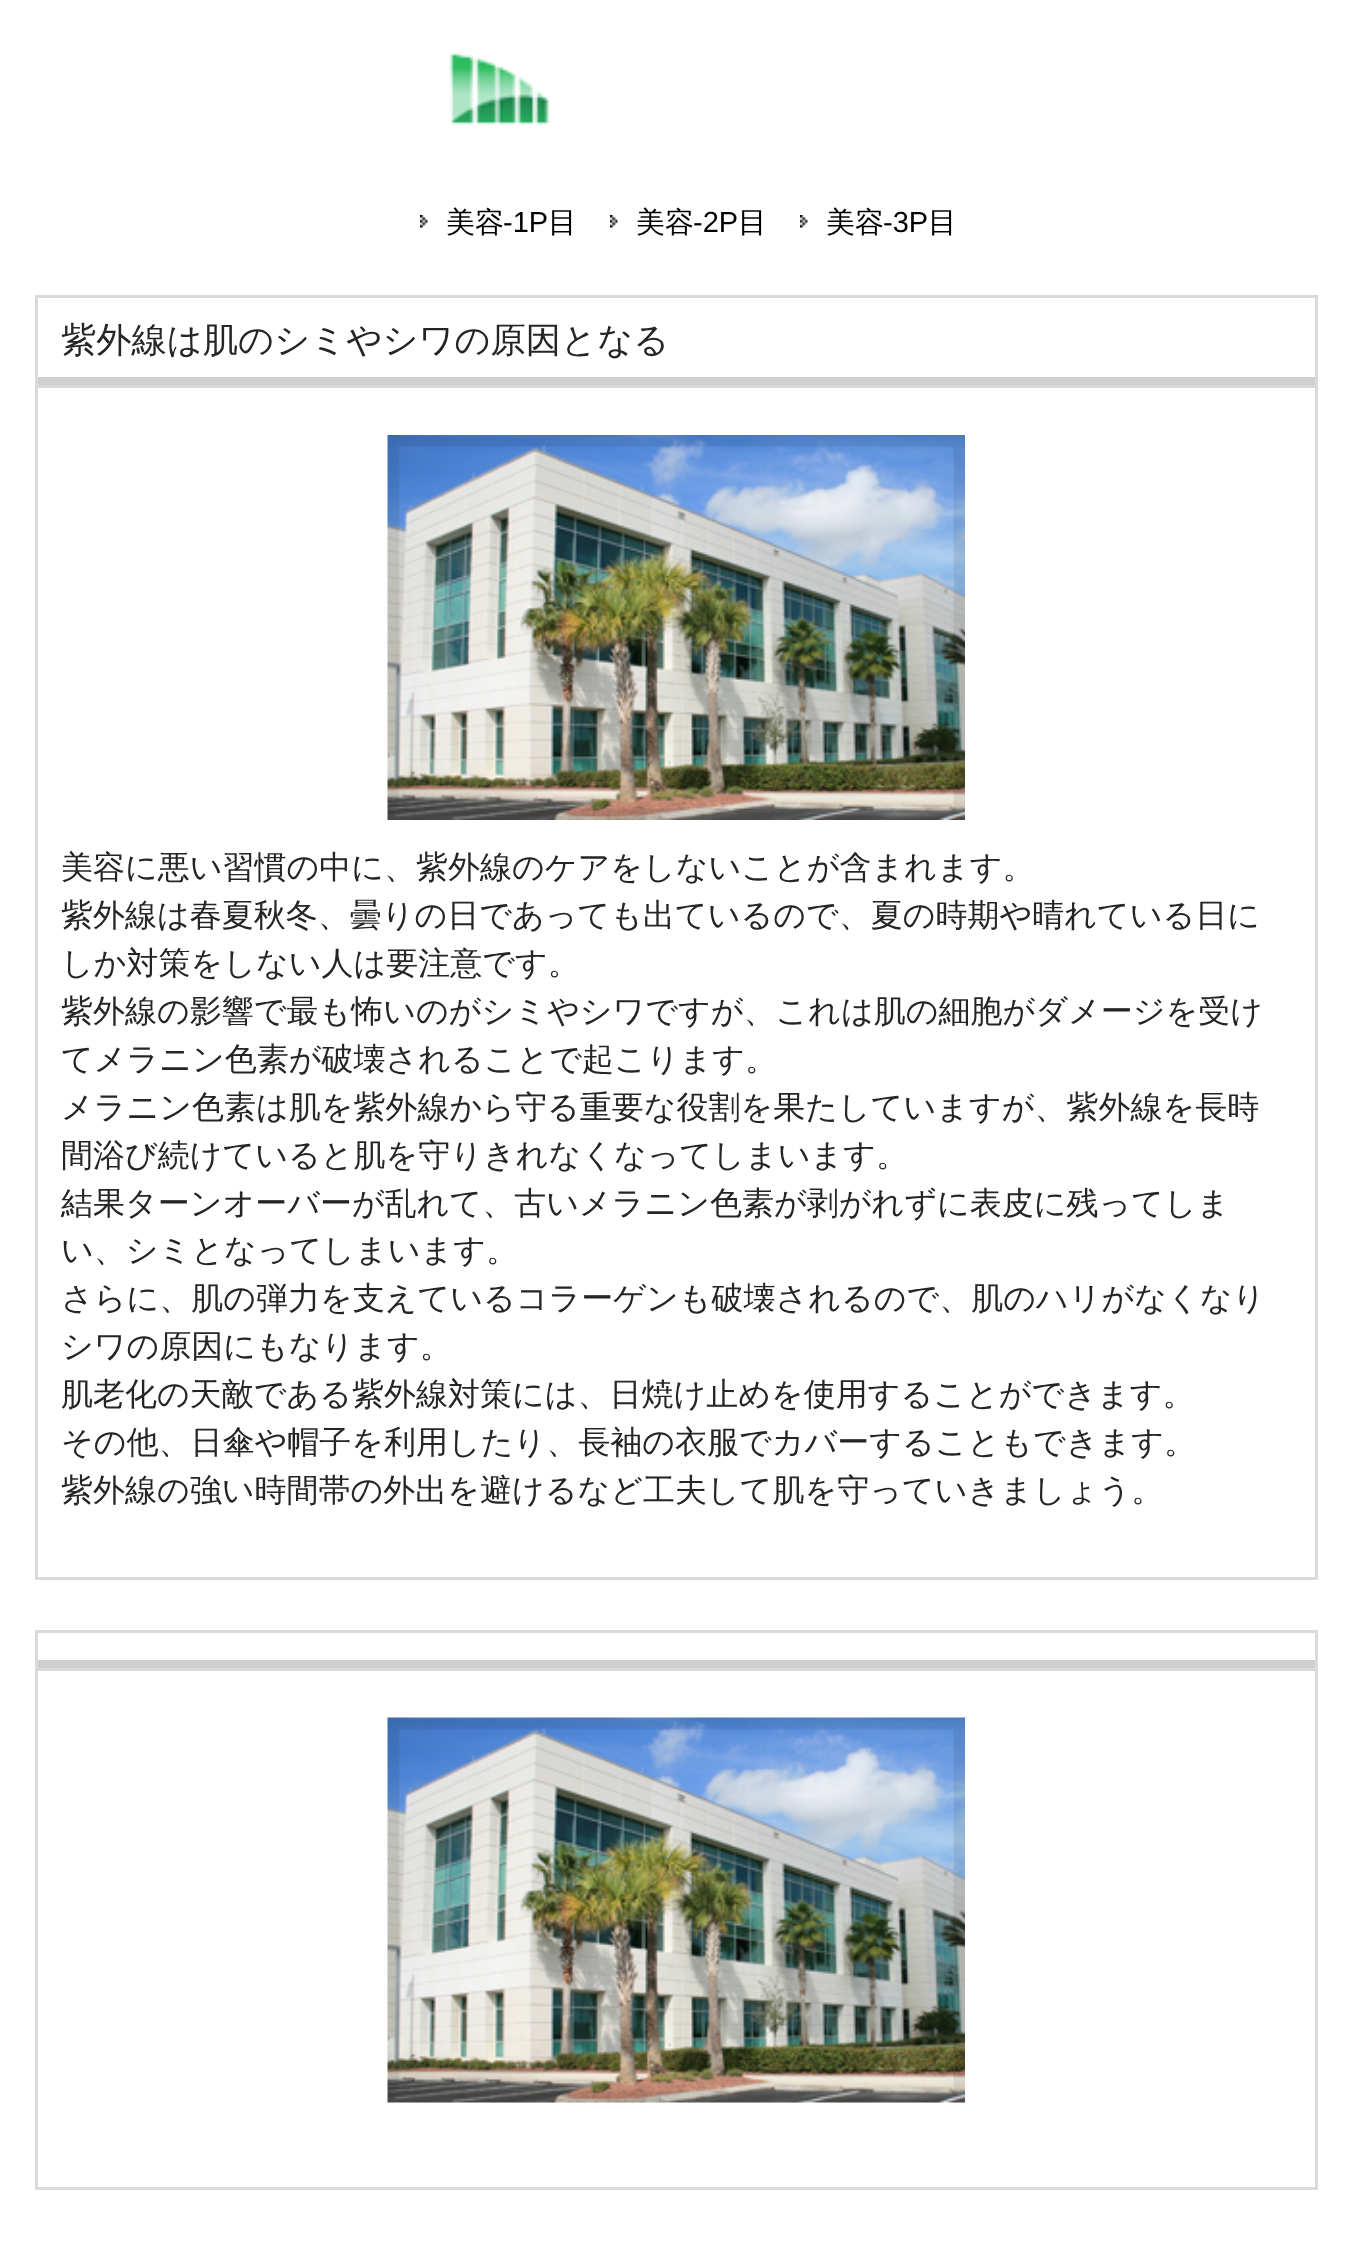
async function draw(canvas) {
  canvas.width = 1352
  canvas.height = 2258
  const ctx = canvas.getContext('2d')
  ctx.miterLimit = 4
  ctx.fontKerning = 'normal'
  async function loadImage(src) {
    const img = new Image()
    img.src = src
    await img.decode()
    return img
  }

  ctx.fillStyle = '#fff'
  ctx.fillRect(0, 0, 1352, 2258)
  ctx.drawImage(await loadImage('image0.png'), 449, 52, 102, 73)
  ctx.drawImage(await loadImage('image1.png'), 420, 215, 8, 13)
  ctx.font = '500 29px WenQuanYi Zen Hei'
  ctx.fillStyle = '#000'
  ctx.fillText('美容', 446, 232)
  ctx.font = '29px Liberation Sans'
  ctx.fillText('-1P', 503, 232)
  ctx.font = '500 29px WenQuanYi Zen Hei'
  ctx.fillText('目', 548, 232)
  ctx.drawImage(await loadImage('image2.png'), 610, 215, 8, 13)
  ctx.fillText('美容', 636, 232)
  ctx.font = '29px Liberation Sans'
  ctx.fillText('-2P', 693, 232)
  ctx.font = '500 29px WenQuanYi Zen Hei'
  ctx.fillText('目', 738, 232)
  ctx.drawImage(await loadImage('image2.png'), 800, 215, 8, 13)
  ctx.fillText('美容', 826, 232)
  ctx.font = '29px Liberation Sans'
  ctx.fillText('-3P', 883, 232)
  ctx.font = '500 29px WenQuanYi Zen Hei'
  ctx.fillText('目', 928, 232)
  ctx.fillStyle = '#cfcfcf'
  ctx.fillRect(35, 377, 1283, 8)
  ctx.fillStyle = '#dadada'
  ctx.fillRect(35, 295, 1283, 3)
  ctx.fillRect(1315, 295, 3, 90)
  ctx.fillRect(35, 295, 3, 90)
  ctx.font = '500 35.25px WenQuanYi Zen Hei'
  ctx.fillStyle = '#252525'
  ctx.fillText('紫外線は肌のシミやシワの原因となる', 61, 352)
  ctx.strokeStyle = '#dadada'
  ctx.lineWidth = 3
  ctx.strokeRect(36.5, 386.5, 1280, 1192)
  ctx.drawImage(await loadImage('image3.png'), 387, 435, 578, 385)
  ctx.font = '500 32px WenQuanYi Zen Hei'
  ctx.fillText('美容に悪い習慣の中に、紫外線のケアをしないことが含まれます。', 61, 878)
  ctx.fillText('紫外線は春夏秋冬、曇りの日であっても出ているので、夏の時期や晴れている日に', 61, 926)
  ctx.fillText('しか対策をしない人は要注意です。', 61, 974)
  ctx.fillText('紫外線の影響で最も怖いのがシミやシワですが、これは肌の細胞がダメージを受け', 61, 1022)
  ctx.fillText('てメラニン色素が破壊されることで起こります。', 61, 1070)
  ctx.fillText('メラニン色素は肌を紫外線から守る重要な役割を果たしていますが、紫外線を長時', 61, 1118)
  ctx.fillText('間浴び続けていると肌を守りきれなくなってしまいます。', 61, 1166)
  ctx.fillText('結果ターンオーバーが乱れて、古いメラニン色素が剥がれずに表皮に残ってしま', 61, 1214)
  ctx.fillText('い、シミとなってしまいます。', 61, 1261)
  ctx.fillText('さらに、肌の弾力を支えているコラーゲンも破壊されるので、肌のハリがなくなり', 61, 1309)
  ctx.fillText('シワの原因にもなります。', 61, 1357)
  ctx.fillText('肌老化の天敵である紫外線対策には、日焼け止めを使用することができます。', 61, 1405)
  ctx.fillText('その他、日傘や帽子を利用したり、長袖の衣服でカバーすることもできます。', 61, 1453)
  ctx.fillText('紫外線の強い時間帯の外出を避けるなど工夫して肌を守っていきましょう。', 61, 1501)
  ctx.fillStyle = '#cfcfcf'
  ctx.fillRect(35, 1660, 1283, 8)
  ctx.fillStyle = '#dadada'
  ctx.fillRect(35, 1630, 1283, 3)
  ctx.fillRect(1315, 1630, 3, 38)
  ctx.fillRect(35, 1630, 3, 38)
  ctx.strokeRect(36.5, 1669.5, 1280, 519)
  ctx.drawImage(await loadImage('image4.png'), 387, 1717, 578, 386)
}

draw(document.querySelector('canvas'))
